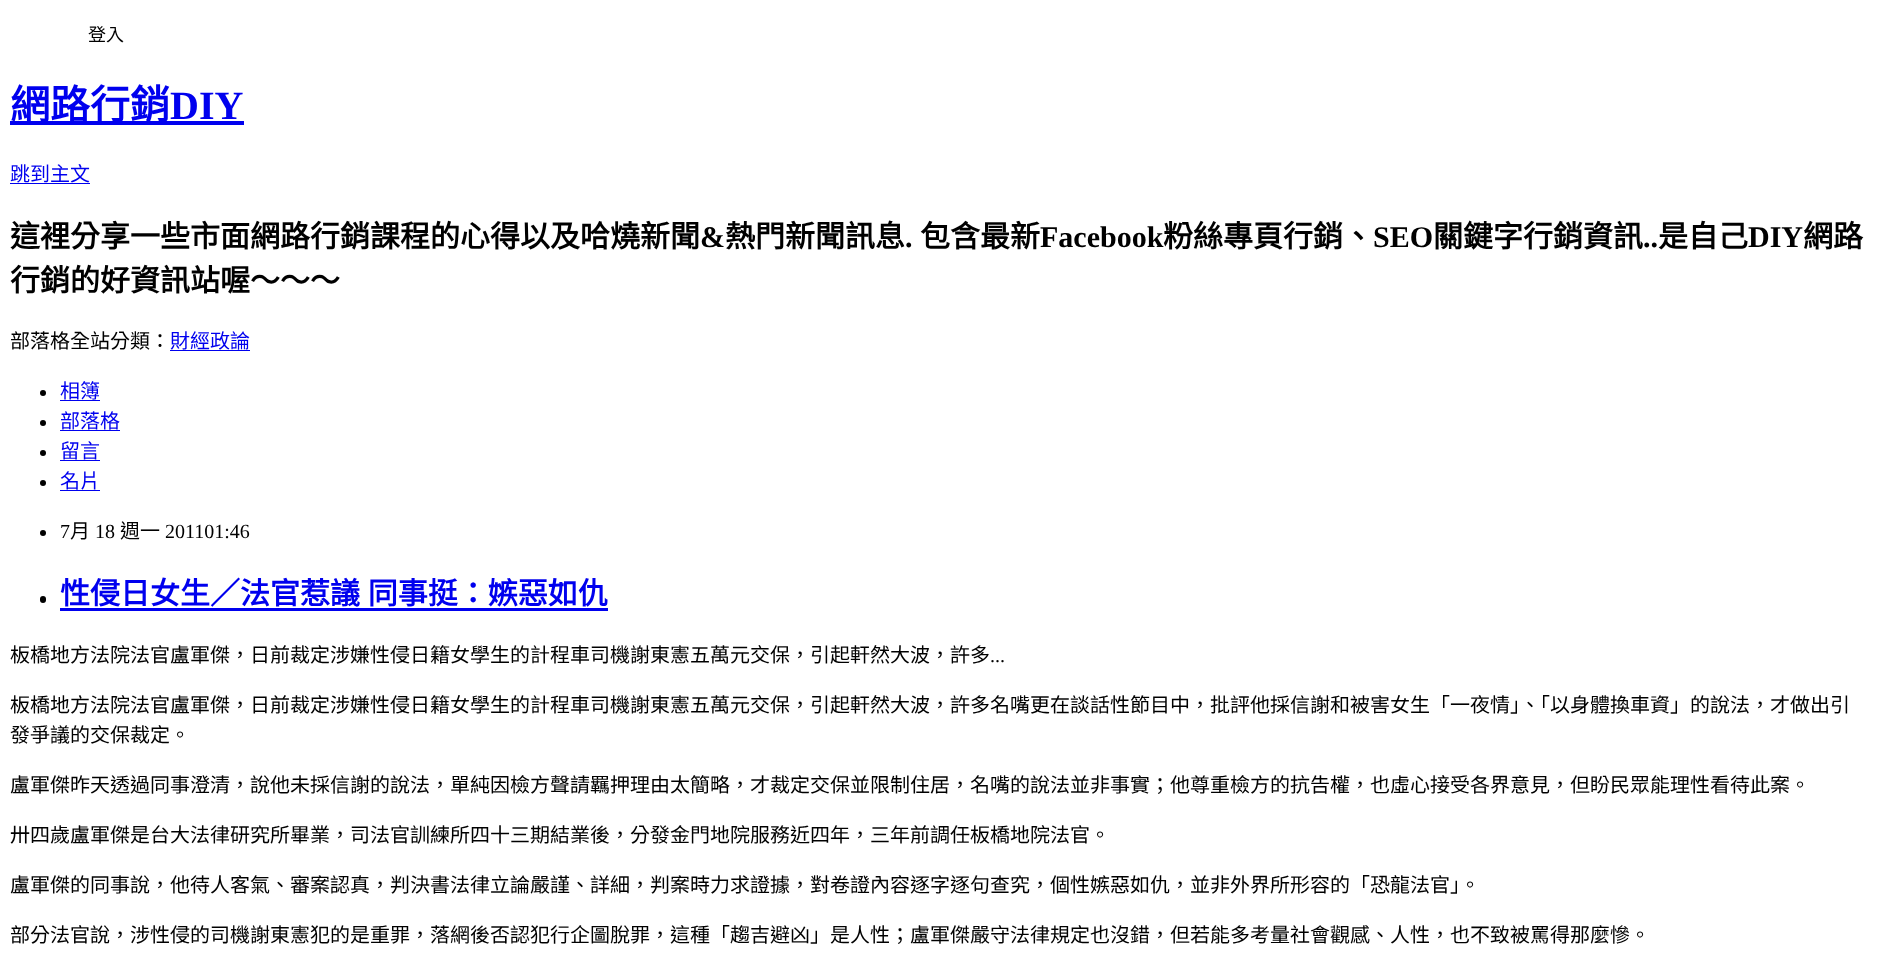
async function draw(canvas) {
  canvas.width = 1877
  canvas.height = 961
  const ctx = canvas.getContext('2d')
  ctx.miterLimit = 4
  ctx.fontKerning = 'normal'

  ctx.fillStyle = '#fff'
  ctx.fillRect(0, 0, 1877, 961)
  ctx.font = '18px Noto Sans CJK TC'
  ctx.fillStyle = '#000'
  ctx.fillText('登入', 88, 41)
  ctx.fillStyle = '#00e'
  ctx.fillRect(10, 121, 234, 4)
  ctx.font = 'bold 40px Noto Sans CJK TC'
  ctx.fillText('網路行銷', 10, 119)
  ctx.font = 'bold 40px Liberation Serif'
  ctx.fillText('DIY', 170, 119)
  ctx.font = '20px Noto Sans CJK TC'
  ctx.fillText('跳到主文', 10, 181)
  ctx.fillRect(10, 183, 80, 1)
  ctx.font = 'bold 30px Noto Sans CJK TC'
  ctx.fillStyle = '#000'
  ctx.fillText('這裡分享一些市面網路行銷課程的心得以及哈燒新聞', 10, 247)
  ctx.font = 'bold 30px Liberation Serif'
  ctx.fillText('&', 700, 247)
  ctx.font = 'bold 30px Noto Sans CJK TC'
  ctx.fillText('熱門新聞訊息', 725, 247)
  ctx.font = 'bold 30px Liberation Serif'
  ctx.fillText('.', 905, 247)
  ctx.font = 'bold 30px Noto Sans CJK TC'
  ctx.fillText('包含最新', 920, 247)
  ctx.font = 'bold 30px Liberation Serif'
  ctx.fillText('Facebook', 1040, 247)
  ctx.font = 'bold 30px Noto Sans CJK TC'
  ctx.fillText('粉絲專頁行銷、', 1163, 247)
  ctx.font = 'bold 30px Liberation Serif'
  ctx.fillText('SEO', 1373, 247)
  ctx.font = 'bold 30px Noto Sans CJK TC'
  ctx.fillText('關鍵字行銷資訊', 1433, 247)
  ctx.font = 'bold 30px Liberation Serif'
  ctx.fillText('..', 1643, 247)
  ctx.font = 'bold 30px Noto Sans CJK TC'
  ctx.fillText('是自己', 1658, 247)
  ctx.font = 'bold 30px Liberation Serif'
  ctx.fillText('DIY', 1748, 247)
  ctx.font = 'bold 30px Noto Sans CJK TC'
  ctx.fillText('網路', 1803, 247)
  ctx.fillText('行銷的好資訊站喔～～～', 10, 291)
  ctx.font = '20px Noto Sans CJK TC'
  ctx.fillText('部落格全站分類：', 10, 348)
  ctx.fillStyle = '#00e'
  ctx.fillText('財經政論', 170, 348)
  ctx.fillRect(170, 350, 80, 1)
  ctx.fillStyle = '#000'
  ctx.beginPath()
  ctx.arc(43, 393, 3, 0, 2 * Math.PI)
  ctx.fill()
  ctx.fillStyle = '#00e'
  ctx.fillText('相簿', 60, 398)
  ctx.fillRect(60, 400, 40, 1)
  ctx.fillStyle = '#000'
  ctx.beginPath()
  ctx.arc(43, 423, 3, 0, 2 * Math.PI)
  ctx.fill()
  ctx.fillStyle = '#00e'
  ctx.fillText('部落格', 60, 428)
  ctx.fillRect(60, 430, 60, 1)
  ctx.fillStyle = '#000'
  ctx.beginPath()
  ctx.arc(43, 453, 3, 0, 2 * Math.PI)
  ctx.fill()
  ctx.fillStyle = '#00e'
  ctx.fillText('留言', 60, 458)
  ctx.fillRect(60, 460, 40, 1)
  ctx.fillStyle = '#000'
  ctx.beginPath()
  ctx.arc(43, 483, 3, 0, 2 * Math.PI)
  ctx.fill()
  ctx.fillStyle = '#00e'
  ctx.fillText('名片', 60, 488)
  ctx.fillRect(60, 490, 40, 1)
  ctx.fillStyle = '#000'
  ctx.beginPath()
  ctx.arc(43, 533, 3, 0, 2 * Math.PI)
  ctx.fill()
  ctx.font = '20px Liberation Serif'
  ctx.fillText('7', 60, 538)
  ctx.font = '20px Noto Sans CJK TC'
  ctx.fillText('月', 70, 538)
  ctx.font = '20px Liberation Serif'
  ctx.fillText('18', 95, 538)
  ctx.font = '20px Noto Sans CJK TC'
  ctx.fillText('週一', 120, 538)
  ctx.font = '20px Liberation Serif'
  ctx.fillText('201101:46', 165, 538)
  ctx.beginPath()
  ctx.roundRect(40, 596, 6, 7, 3)
  ctx.fill()
  ctx.wordSpacing = '1px'
  ctx.font = 'bold 30px Noto Sans CJK TC'
  ctx.fillStyle = '#00e'
  ctx.fillText('性侵日女生／法官惹議 同事挺：嫉惡如仇', 60, 604)
  ctx.fillRect(60, 608, 548, 3)
  ctx.wordSpacing = '0px'
  ctx.font = '20px Noto Sans CJK TC'
  ctx.fillStyle = '#000'
  ctx.fillText('板橋地方法院法官盧軍傑，日前裁定涉嫌性侵日籍女學生的計程車司機謝東憲五萬元交保，引起軒然大波，許多', 10, 662)
  ctx.font = '20px Liberation Serif'
  ctx.fillText('...', 990, 662)
  ctx.font = '20px Noto Sans CJK TC'
  ctx.fillText('板橋地方法院法官盧軍傑，日前裁定涉嫌性侵日籍女學生的計程車司機謝東憲五萬元交保，引起軒然大波，許多名嘴更在談話性節目中，批評他採信謝和被害女生「一夜情」、「以身體換車資」的說法，才做出引', 10, 712)
  ctx.fillText('發爭議的交保裁定。', 10, 742)
  ctx.fillText('盧軍傑昨天透過同事澄清，說他未採信謝的說法，單純因檢方聲請羈押理由太簡略，才裁定交保並限制住居，名嘴的說法並非事實；他尊重檢方的抗告權，也虛心接受各界意見，但盼民眾能理性看待此案。', 10, 792)
  ctx.fillText('卅四歲盧軍傑是台大法律研究所畢業，司法官訓練所四十三期結業後，分發金門地院服務近四年，三年前調任板橋地院法官。', 10, 842)
  ctx.fillText('盧軍傑的同事說，他待人客氣、審案認真，判決書法律立論嚴謹、詳細，判案時力求證據，對卷證內容逐字逐句查究，個性嫉惡如仇，並非外界所形容的「恐龍法官」。', 10, 892)
  ctx.fillText('部分法官說，涉性侵的司機謝東憲犯的是重罪，落網後否認犯行企圖脫罪，這種「趨吉避凶」是人性；盧軍傑嚴守法律規定也沒錯，但若能多考量社會觀感、人性，也不致被罵得那麼慘。', 10, 942)
}

draw(document.querySelector('canvas'))
